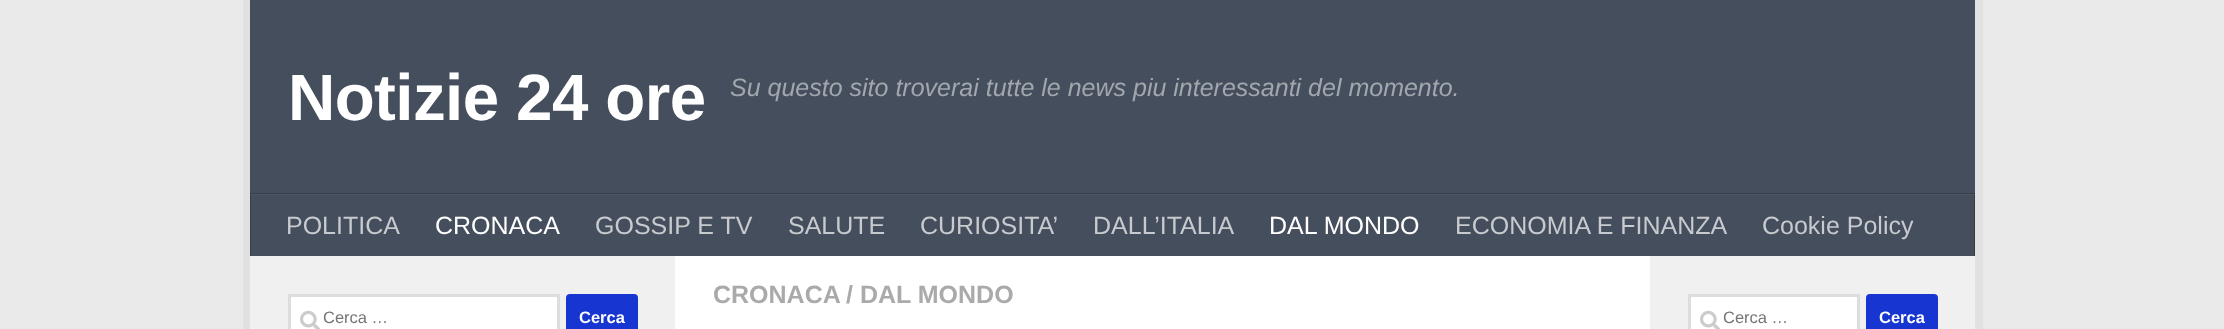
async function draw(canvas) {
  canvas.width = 2224
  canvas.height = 329
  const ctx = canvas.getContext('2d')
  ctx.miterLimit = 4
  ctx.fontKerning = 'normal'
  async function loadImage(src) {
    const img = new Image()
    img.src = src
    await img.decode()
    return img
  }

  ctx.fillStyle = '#eaeaea'
  ctx.fillRect(0, 0, 2224, 329)
  ctx.fillStyle = '#e1e1e1'
  ctx.beginPath()
  ctx.moveTo(243, 0)
  ctx.lineTo(243, 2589)
  ctx.lineTo(1968, 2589)
  ctx.lineTo(250, 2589)
  ctx.lineTo(250, 0)
  ctx.closePath()
  ctx.fill()
  ctx.beginPath()
  ctx.moveTo(258, 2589)
  ctx.lineTo(1983, 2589)
  ctx.lineTo(1983, 0)
  ctx.lineTo(1975, 0)
  ctx.lineTo(1975, 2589)
  ctx.closePath()
  ctx.fill()
  ctx.fillStyle = '#454e5c'
  ctx.fillRect(250, 0, 1725, 256)
  ctx.fillStyle = '#4e5764'
  ctx.fillRect(250, 194, 1725, 1)
  ctx.letterSpacing = '-0.6px'
  ctx.font = 'bold 65.5px Liberation Sans'
  ctx.fillStyle = '#fff'
  ctx.fillText('Notizie 24 ore', 288, 120)
  ctx.letterSpacing = '0px'
  ctx.font = 'italic 25px Liberation Sans'
  ctx.fillStyle = '#a2a7ae'
  ctx.fillText('Su questo sito troverai tutte le news piu interessanti del momento.', 730, 96)
  ctx.fillStyle = '#373e4a'
  ctx.fillRect(250, 193, 1725, 1)
  ctx.fillRect(1974, 194, 1, 62)
  ctx.fillStyle = '#414853'
  ctx.fillRect(1974, 194, 1, 1)
  ctx.fillStyle = '#373e4a'
  ctx.fillRect(250, 194, 1, 62)
  ctx.fillStyle = '#414853'
  ctx.fillRect(250, 194, 1, 1)
  ctx.font = '25px Liberation Sans'
  ctx.fillStyle = '#c7cace'
  ctx.fillText('POLITICA', 286, 234)
  ctx.fillStyle = '#fff'
  ctx.fillText('CRONACA', 435, 234)
  ctx.fillStyle = '#c7cace'
  ctx.fillText('GOSSIP E TV', 595, 234)
  ctx.fillText('SALUTE', 788, 234)
  ctx.fillText('CURIOSITA’', 920, 234)
  ctx.fillText('DALL’ITALIA', 1093, 234)
  ctx.fillStyle = '#fff'
  ctx.fillText('DAL MONDO', 1269, 234)
  ctx.fillStyle = '#c7cace'
  ctx.fillText('ECONOMIA E FINANZA', 1455, 234)
  ctx.fillText('Cookie Policy', 1762, 234)
  ctx.fillStyle = '#fff'
  ctx.fillRect(675, 256, 975, 73)
  ctx.fillStyle = '#f0f0f0'
  ctx.fillRect(250, 256, 425, 73)
  ctx.fillRect(1650, 256, 325, 73)
  ctx.font = 'bold 25px Liberation Sans'
  ctx.fillStyle = '#aaa'
  ctx.fillText('CRONACA', 713, 303)
  ctx.fillText('/ DAL MONDO', 846, 303)
  ctx.fillStyle = '#fff'
  ctx.beginPath()
  ctx.rect(289.5, 295.5, 269, 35)
  ctx.fill()
  ctx.strokeStyle = '#ddd'
  ctx.lineWidth = 3
  ctx.stroke()
  ctx.drawImage(await loadImage('image0.png'), 300, 310, 21, 19)
  ctx.font = '16.5px Liberation Sans'
  ctx.fillStyle = '#757575'
  ctx.fillText('Cerca …', 323, 323)
  ctx.fillStyle = '#1736d1'
  ctx.beginPath()
  ctx.roundRect(566, 294, 72, 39, 4)
  ctx.fill()
  ctx.font = 'bold 16.5px Liberation Sans'
  ctx.fillStyle = '#fff'
  ctx.fillText('Cerca', 579, 323)
  ctx.beginPath()
  ctx.rect(1689.5, 295.5, 169, 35)
  ctx.fill()
  ctx.stroke()
  ctx.drawImage(await loadImage('image0.png'), 1700, 310, 21, 19)
  ctx.font = '16.5px Liberation Sans'
  ctx.fillStyle = '#757575'
  ctx.fillText('Cerca …', 1723, 323)
  ctx.fillStyle = '#1736d1'
  ctx.beginPath()
  ctx.roundRect(1866, 294, 72, 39, 4)
  ctx.fill()
  ctx.font = 'bold 16.5px Liberation Sans'
  ctx.fillStyle = '#fff'
  ctx.fillText('Cerca', 1879, 323)
}

draw(document.querySelector('canvas'))
